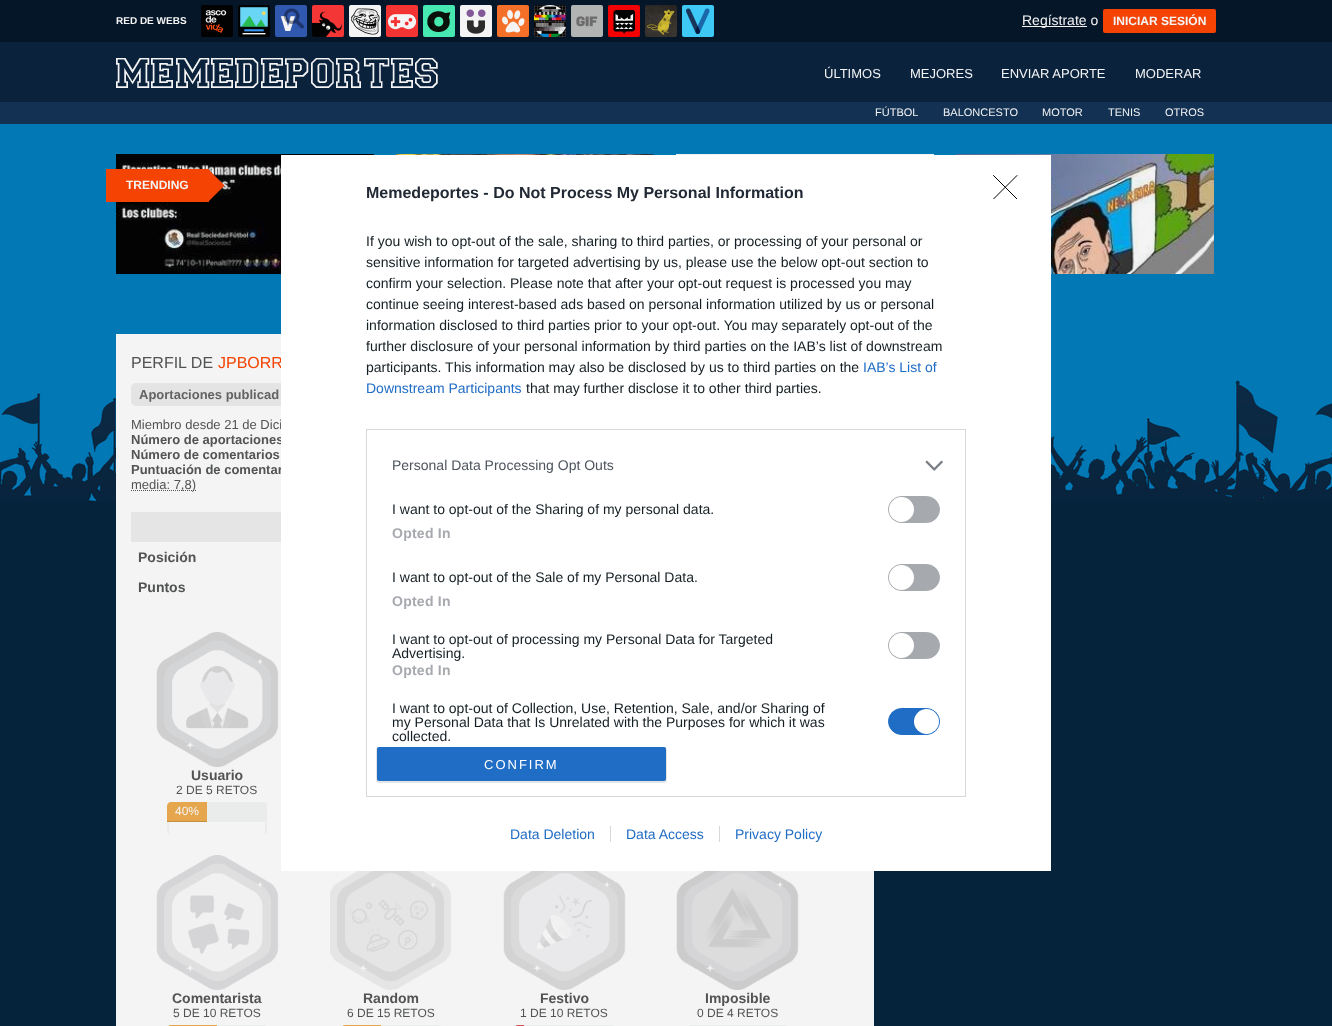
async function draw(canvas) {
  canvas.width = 1332
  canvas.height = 1026
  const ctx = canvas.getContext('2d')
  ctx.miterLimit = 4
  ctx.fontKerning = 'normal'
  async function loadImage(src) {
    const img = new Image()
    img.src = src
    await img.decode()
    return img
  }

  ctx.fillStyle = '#06233c'
  ctx.fillRect(0, 0, 1332, 1026)
  ctx.drawImage(await loadImage('image0.png'), 0, 124, 1332, 378)
  ctx.fillStyle = '#051629'
  ctx.fillRect(0, 0, 1332, 42)
  ctx.font = 'bold 10px Liberation Sans'
  ctx.fillStyle = '#f4f4f5'
  ctx.fillText('RED DE WEBS', 116, 24)
  ctx.drawImage(await loadImage('image1.png'), 201, 5, 32, 32)
  ctx.drawImage(await loadImage('image2.png'), 238, 5, 32, 32)
  ctx.drawImage(await loadImage('image3.png'), 275, 5, 32, 32)
  ctx.drawImage(await loadImage('image4.png'), 312, 5, 32, 32)
  ctx.drawImage(await loadImage('image5.png'), 349, 5, 32, 32)
  ctx.drawImage(await loadImage('image6.png'), 386, 5, 32, 32)
  ctx.drawImage(await loadImage('image7.png'), 423, 5, 32, 32)
  ctx.drawImage(await loadImage('image8.png'), 460, 5, 32, 32)
  ctx.drawImage(await loadImage('image9.png'), 497, 5, 32, 32)
  ctx.drawImage(await loadImage('image10.png'), 534, 5, 32, 32)
  ctx.drawImage(await loadImage('image11.png'), 571, 5, 32, 32)
  ctx.drawImage(await loadImage('image12.png'), 608, 5, 32, 32)
  ctx.drawImage(await loadImage('image13.png'), 645, 5, 32, 32)
  ctx.drawImage(await loadImage('image14.png'), 682, 5, 32, 32)
  ctx.fillStyle = '#f3f3f4'
  ctx.fillRect(1022, 26, 65, 1)
  ctx.font = '14px Liberation Sans'
  ctx.fillStyle = '#f4f4f5'
  ctx.fillText('Regístrate o', 1022, 25)
  ctx.fillStyle = '#f44303'
  ctx.beginPath()
  ctx.roundRect(1103, 9, 113, 24, 2)
  ctx.fill()
  ctx.font = 'bold 12px Liberation Sans'
  ctx.fillStyle = '#f4f4f5'
  ctx.fillText('INICIAR SESIÓN', 1113, 25)
  ctx.fillStyle = '#0a223c'
  ctx.fillRect(0, 42, 1332, 60)
  ctx.drawImage(await loadImage('image15.png'), 116, 58, 322, 30)
  ctx.font = '13px Liberation Sans'
  ctx.fillStyle = '#f4f4f5'
  ctx.fillText('ÚLTIMOS', 824, 78)
  ctx.fillText('MEJORES', 910, 78)
  ctx.fillText('ENVIAR APORTE', 1001, 78)
  ctx.fillText('MODERAR', 1135, 78)
  ctx.fillStyle = '#133253'
  ctx.fillRect(0, 102, 1332, 22)
  ctx.font = '11px Liberation Sans'
  ctx.fillStyle = '#f4f4f5'
  ctx.fillText('FÚTBOL', 875, 116)
  ctx.fillText('BALONCESTO', 943, 116)
  ctx.fillText('MOTOR', 1042, 116)
  ctx.fillText('TENIS', 1108, 116)
  ctx.fillText('OTROS', 1165, 116)
  ctx.drawImage(await loadImage('image16.png'), 116, 154, 258, 120)
  ctx.drawImage(await loadImage('image17.png'), 396, 154, 258, 1)
  ctx.drawImage(await loadImage('image18.png'), 676, 154, 258, 1)
  ctx.drawImage(await loadImage('image19.png'), 956, 154, 258, 120)
  ctx.fillStyle = '#f44303'
  ctx.fillRect(106, 169, 103, 33)
  ctx.font = 'bold 12px Liberation Sans'
  ctx.fillStyle = '#f4f4f5'
  ctx.fillText('TRENDING', 126, 189)
  ctx.fillStyle = '#f44303'
  ctx.beginPath()
  ctx.moveTo(208, 169)
  ctx.lineTo(224.5, 185.5)
  ctx.lineTo(208, 202)
  ctx.lineTo(192, 185.5)
  ctx.closePath()
  ctx.fill()
  ctx.fillStyle = '#f4f4f5'
  ctx.fillRect(116, 334, 758, 692)
  ctx.font = '16px Liberation Sans'
  ctx.fillStyle = '#f44303'
  ctx.fillText('JPBORR', 218, 368)
  ctx.fillStyle = '#e4e4e5'
  ctx.beginPath()
  ctx.roundRect(131, 383, 171, 23, 5)
  ctx.fill()
  ctx.font = '13px Liberation Sans'
  ctx.fillStyle = '#525353'
  ctx.fillText('Miembro desde 21 de Dici', 131, 429)
  ctx.font = 'bold 13px Liberation Sans'
  ctx.fillText('Número de aportaciones', 131, 444)
  ctx.fillText('Puntuación de comentar', 131, 474)
  ctx.fillStyle = '#fff'
  ctx.fillRect(281, 155, 770, 716)
  ctx.font = 'bold 16px Liberation Sans'
  ctx.fillStyle = '#212934'
  ctx.fillText('Memedeportes - Do Not Process My Personal Information', 366, 198)
  ctx.font = '14px Liberation Sans'
  ctx.fillStyle = '#141e23'
  ctx.fillText('If you wish to opt-out of the sale, sharing to third parties, or processing of your personal or', 366, 246)
  ctx.fillText('sensitive information for targeted advertising by us, please use the below opt-out section to', 366, 267)
  ctx.fillText('confirm your selection. Please note that after your opt-out request is processed you may', 366, 288)
  ctx.fillText('continue seeing interest-based ads based on personal information utilized by us or personal', 366, 309)
  ctx.fillText('information disclosed to third parties prior to your opt-out. You may separately opt-out of the', 366, 330)
  ctx.fillText('further disclosure of your personal information by third parties on the IAB’s list of downstream', 366, 351)
  ctx.fillText('participants. This information may also be disclosed by us to third parties on the', 366, 372)
  ctx.fillStyle = '#206dc5'
  ctx.fillText('IAB’s List of', 863, 372)
  ctx.fillText('Downstream Participants', 366, 393)
  ctx.fillStyle = '#141e23'
  ctx.fillText('that may further disclose it to other third parties.', 526, 393)
  ctx.strokeStyle = '#d8d8d8'
  ctx.strokeRect(366.5, 429.5, 599, 367)
  ctx.fillStyle = '#4d545d'
  ctx.fillText('Personal Data Processing Opt Outs', 392, 470)
  ctx.drawImage(await loadImage('image20.png'), 925, 460, 18, 11)
  ctx.fillStyle = '#141e23'
  ctx.fillText('I want to opt-out of the Sharing of my personal data.', 392, 514)
  ctx.fillStyle = '#a6a9ae'
  ctx.beginPath()
  ctx.roundRect(888.5, 496.5, 51, 26, 13)
  ctx.fill()
  ctx.strokeStyle = '#a6a9ae'
  ctx.stroke()
  ctx.fillStyle = '#fff'
  ctx.beginPath()
  ctx.arc(901.5, 509.5, 12.5, 0, 2 * Math.PI)
  ctx.fill()
  ctx.letterSpacing = '0.25px'
  ctx.font = 'bold 14px Liberation Sans'
  ctx.fillStyle = '#a6a9ae'
  ctx.fillText('Opted In', 392, 538)
  ctx.letterSpacing = '0px'
  ctx.font = '14px Liberation Sans'
  ctx.fillStyle = '#141e23'
  ctx.fillText('I want to opt-out of the Sale of my Personal Data.', 392, 582)
  ctx.fillStyle = '#a6a9ae'
  ctx.beginPath()
  ctx.roundRect(888.5, 564.5, 51, 26, 13)
  ctx.fill()
  ctx.stroke()
  ctx.fillStyle = '#fff'
  ctx.beginPath()
  ctx.arc(901.5, 577.5, 12.5, 0, 2 * Math.PI)
  ctx.fill()
  ctx.letterSpacing = '0.25px'
  ctx.font = 'bold 14px Liberation Sans'
  ctx.fillStyle = '#a6a9ae'
  ctx.fillText('Opted In', 392, 606)
  ctx.letterSpacing = '0px'
  ctx.font = '14px Liberation Sans'
  ctx.fillStyle = '#141e23'
  ctx.fillText('I want to opt-out of processing my Personal Data for Targeted', 392, 644)
  ctx.fillText('Advertising.', 392, 658)
  ctx.fillStyle = '#a6a9ae'
  ctx.beginPath()
  ctx.roundRect(888.5, 632.5, 51, 26, 13)
  ctx.fill()
  ctx.stroke()
  ctx.fillStyle = '#fff'
  ctx.beginPath()
  ctx.arc(901.5, 645.5, 12.5, 0, 2 * Math.PI)
  ctx.fill()
  ctx.letterSpacing = '0.25px'
  ctx.font = 'bold 14px Liberation Sans'
  ctx.fillStyle = '#a6a9ae'
  ctx.fillText('Opted In', 392, 675)
  ctx.letterSpacing = '0px'
  ctx.font = '14px Liberation Sans'
  ctx.fillStyle = '#141e23'
  ctx.fillText('I want to opt-out of Collection, Use, Retention, Sale, and/or Sharing of', 392, 713)
  ctx.fillText('my Personal Data that Is Unrelated with the Purposes for which it was', 392, 727)
  ctx.fillText('collected.', 392, 741)
  ctx.fillStyle = '#206dc5'
  ctx.beginPath()
  ctx.roundRect(888.5, 708.5, 51, 26, 13)
  ctx.fill()
  ctx.strokeStyle = '#206dc5'
  ctx.stroke()
  ctx.fillStyle = '#fff'
  ctx.beginPath()
  ctx.arc(926.5, 721.5, 12.5, 0, 2 * Math.PI)
  ctx.fill()
  ctx.fillStyle = '#0000001a'
  ctx.filter = 'blur(0.5px)'
  ctx.beginPath()
  ctx.roundRect(376, 747, 291, 36, 3)
  ctx.fill()
  ctx.filter = 'none'
  ctx.fillStyle = '#206dc5'
  ctx.beginPath()
  ctx.roundRect(377, 747, 289, 34, 2)
  ctx.fill()
  ctx.letterSpacing = '2px'
  ctx.font = '13px Liberation Sans'
  ctx.fillStyle = '#fff'
  ctx.fillText('CONFIRM', 484, 769)
  ctx.save()
  ctx.beginPath()
  ctx.rect(993, 175, 25, 24)
  ctx.clip()
  ctx.beginPath()
  ctx.moveTo(993.5, 175.5)
  ctx.lineTo(1017, 199)
  ctx.moveTo(1017, 175.5)
  ctx.lineTo(993.5, 199)
  ctx.strokeStyle = '#000'
  ctx.lineCap = 'round'
  ctx.lineJoin = 'round'
  ctx.stroke()
  ctx.restore()
  ctx.letterSpacing = '0px'
  ctx.font = '14px Liberation Sans'
  ctx.fillStyle = '#206dc5'
  ctx.fillText('Data Deletion', 510, 839)
  ctx.fillText('Data Access', 626, 839)
  ctx.fillStyle = '#d8d8d8'
  ctx.fillRect(610, 826, 1, 16)
  ctx.fillStyle = '#206dc5'
  ctx.fillText('Privacy Policy', 735, 839)
  ctx.fillStyle = '#d8d8d8'
  ctx.fillRect(719, 826, 1, 16)
  ctx.font = '16px Liberation Sans'
  ctx.fillStyle = '#525353'
  ctx.fillText('PERFIL DE', 131, 368)
  ctx.font = 'bold 13px Liberation Sans'
  ctx.fillStyle = '#636363'
  ctx.fillText('Aportaciones publicad', 139, 399)
  ctx.fillStyle = '#525353'
  ctx.fillText('Número de comentarios', 131, 459)
  ctx.beginPath()
  ctx.moveTo(131, 490.5)
  ctx.lineTo(196, 490.5)
  ctx.strokeStyle = '#525353'
  ctx.setLineDash([1, 1])
  ctx.stroke()
  ctx.font = '13px Liberation Sans'
  ctx.fillText('media: 7,8)', 131, 489)
  ctx.fillStyle = '#e5e5e6'
  ctx.fillRect(131, 512, 150, 30)
  ctx.font = 'bold 14px Liberation Sans'
  ctx.fillStyle = '#525353'
  ctx.fillText('Posición', 138, 562)
  ctx.fillText('Puntos', 138, 592)
  ctx.drawImage(await loadImage('image21.png'), 156, 632, 123, 135)
  ctx.fillText('Usuario', 191, 780)
  ctx.font = '12px Liberation Sans'
  ctx.fillText('2 DE 5 RETOS', 176, 794)
  ctx.fillStyle = '#eaebeb'
  ctx.beginPath()
  ctx.roundRect(167, 802, 100, 33, 4)
  ctx.fill()
  ctx.fillStyle = '#f4f4f5'
  ctx.fillRect(169, 822, 96, 13)
  ctx.fillStyle = '#e6a64d'
  ctx.beginPath()
  ctx.moveTo(171, 802)
  ctx.bezierCurveTo(169, 802, 167, 804, 167, 806)
  ctx.lineTo(167, 822)
  ctx.lineTo(207, 822)
  ctx.lineTo(207, 802)
  ctx.closePath()
  ctx.fill()
  ctx.fillStyle = '#c38e41'
  ctx.fillRect(167, 821, 40, 1)
  ctx.fillStyle = '#f4f4f5'
  ctx.fillText('40%', 175, 815)
  ctx.drawImage(await loadImage('image22.png'), 156, 855, 123, 135)
  ctx.font = 'bold 14px Liberation Sans'
  ctx.fillStyle = '#525353'
  ctx.fillText('Comentarista', 172, 1003)
  ctx.font = '12px Liberation Sans'
  ctx.fillText('5 DE 10 RETOS', 173, 1017)
  ctx.fillStyle = '#eaebeb'
  ctx.beginPath()
  ctx.roundRect(167, 1025, 100, 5, 4)
  ctx.fill()
  ctx.fillStyle = '#e6a64d'
  ctx.beginPath()
  ctx.moveTo(171, 1025)
  ctx.bezierCurveTo(169, 1025, 167, 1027, 167, 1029)
  ctx.lineTo(167, 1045)
  ctx.lineTo(217, 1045)
  ctx.lineTo(217, 1025)
  ctx.closePath()
  ctx.fill()
  ctx.drawImage(await loadImage('image23.png'), 330, 871, 121, 119)
  ctx.font = 'bold 14px Liberation Sans'
  ctx.fillStyle = '#525353'
  ctx.fillText('Random', 363, 1003)
  ctx.font = '12px Liberation Sans'
  ctx.fillText('6 DE 15 RETOS', 347, 1017)
  ctx.fillStyle = '#eaebeb'
  ctx.beginPath()
  ctx.roundRect(341, 1025, 100, 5, 4)
  ctx.fill()
  ctx.fillStyle = '#e6a64d'
  ctx.beginPath()
  ctx.moveTo(345, 1025)
  ctx.bezierCurveTo(343, 1025, 341, 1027, 341, 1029)
  ctx.lineTo(341, 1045)
  ctx.lineTo(381, 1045)
  ctx.lineTo(381, 1025)
  ctx.closePath()
  ctx.fill()
  ctx.drawImage(await loadImage('image24.png'), 503, 871, 123, 119)
  ctx.font = 'bold 14px Liberation Sans'
  ctx.fillStyle = '#525353'
  ctx.fillText('Festivo', 540, 1003)
  ctx.font = '12px Liberation Sans'
  ctx.fillText('1 DE 10 RETOS', 520, 1017)
  ctx.fillStyle = '#eaebeb'
  ctx.beginPath()
  ctx.roundRect(514, 1025, 100, 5, 4)
  ctx.fill()
  ctx.fillStyle = '#d0514e'
  ctx.beginPath()
  ctx.moveTo(518, 1025)
  ctx.bezierCurveTo(516, 1025, 514, 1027, 514, 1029)
  ctx.lineTo(514, 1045)
  ctx.lineTo(524, 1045)
  ctx.lineTo(524, 1025)
  ctx.closePath()
  ctx.fill()
  ctx.drawImage(await loadImage('image25.png'), 676, 871, 123, 119)
  ctx.font = 'bold 14px Liberation Sans'
  ctx.fillStyle = '#525353'
  ctx.fillText('Imposible', 705, 1003)
  ctx.font = '12px Liberation Sans'
  ctx.fillText('0 DE 4 RETOS', 697, 1017)
  ctx.fillStyle = '#eaebeb'
  ctx.beginPath()
  ctx.roundRect(688, 1025, 100, 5, 4)
  ctx.fill()
}

draw(document.querySelector('canvas'))
